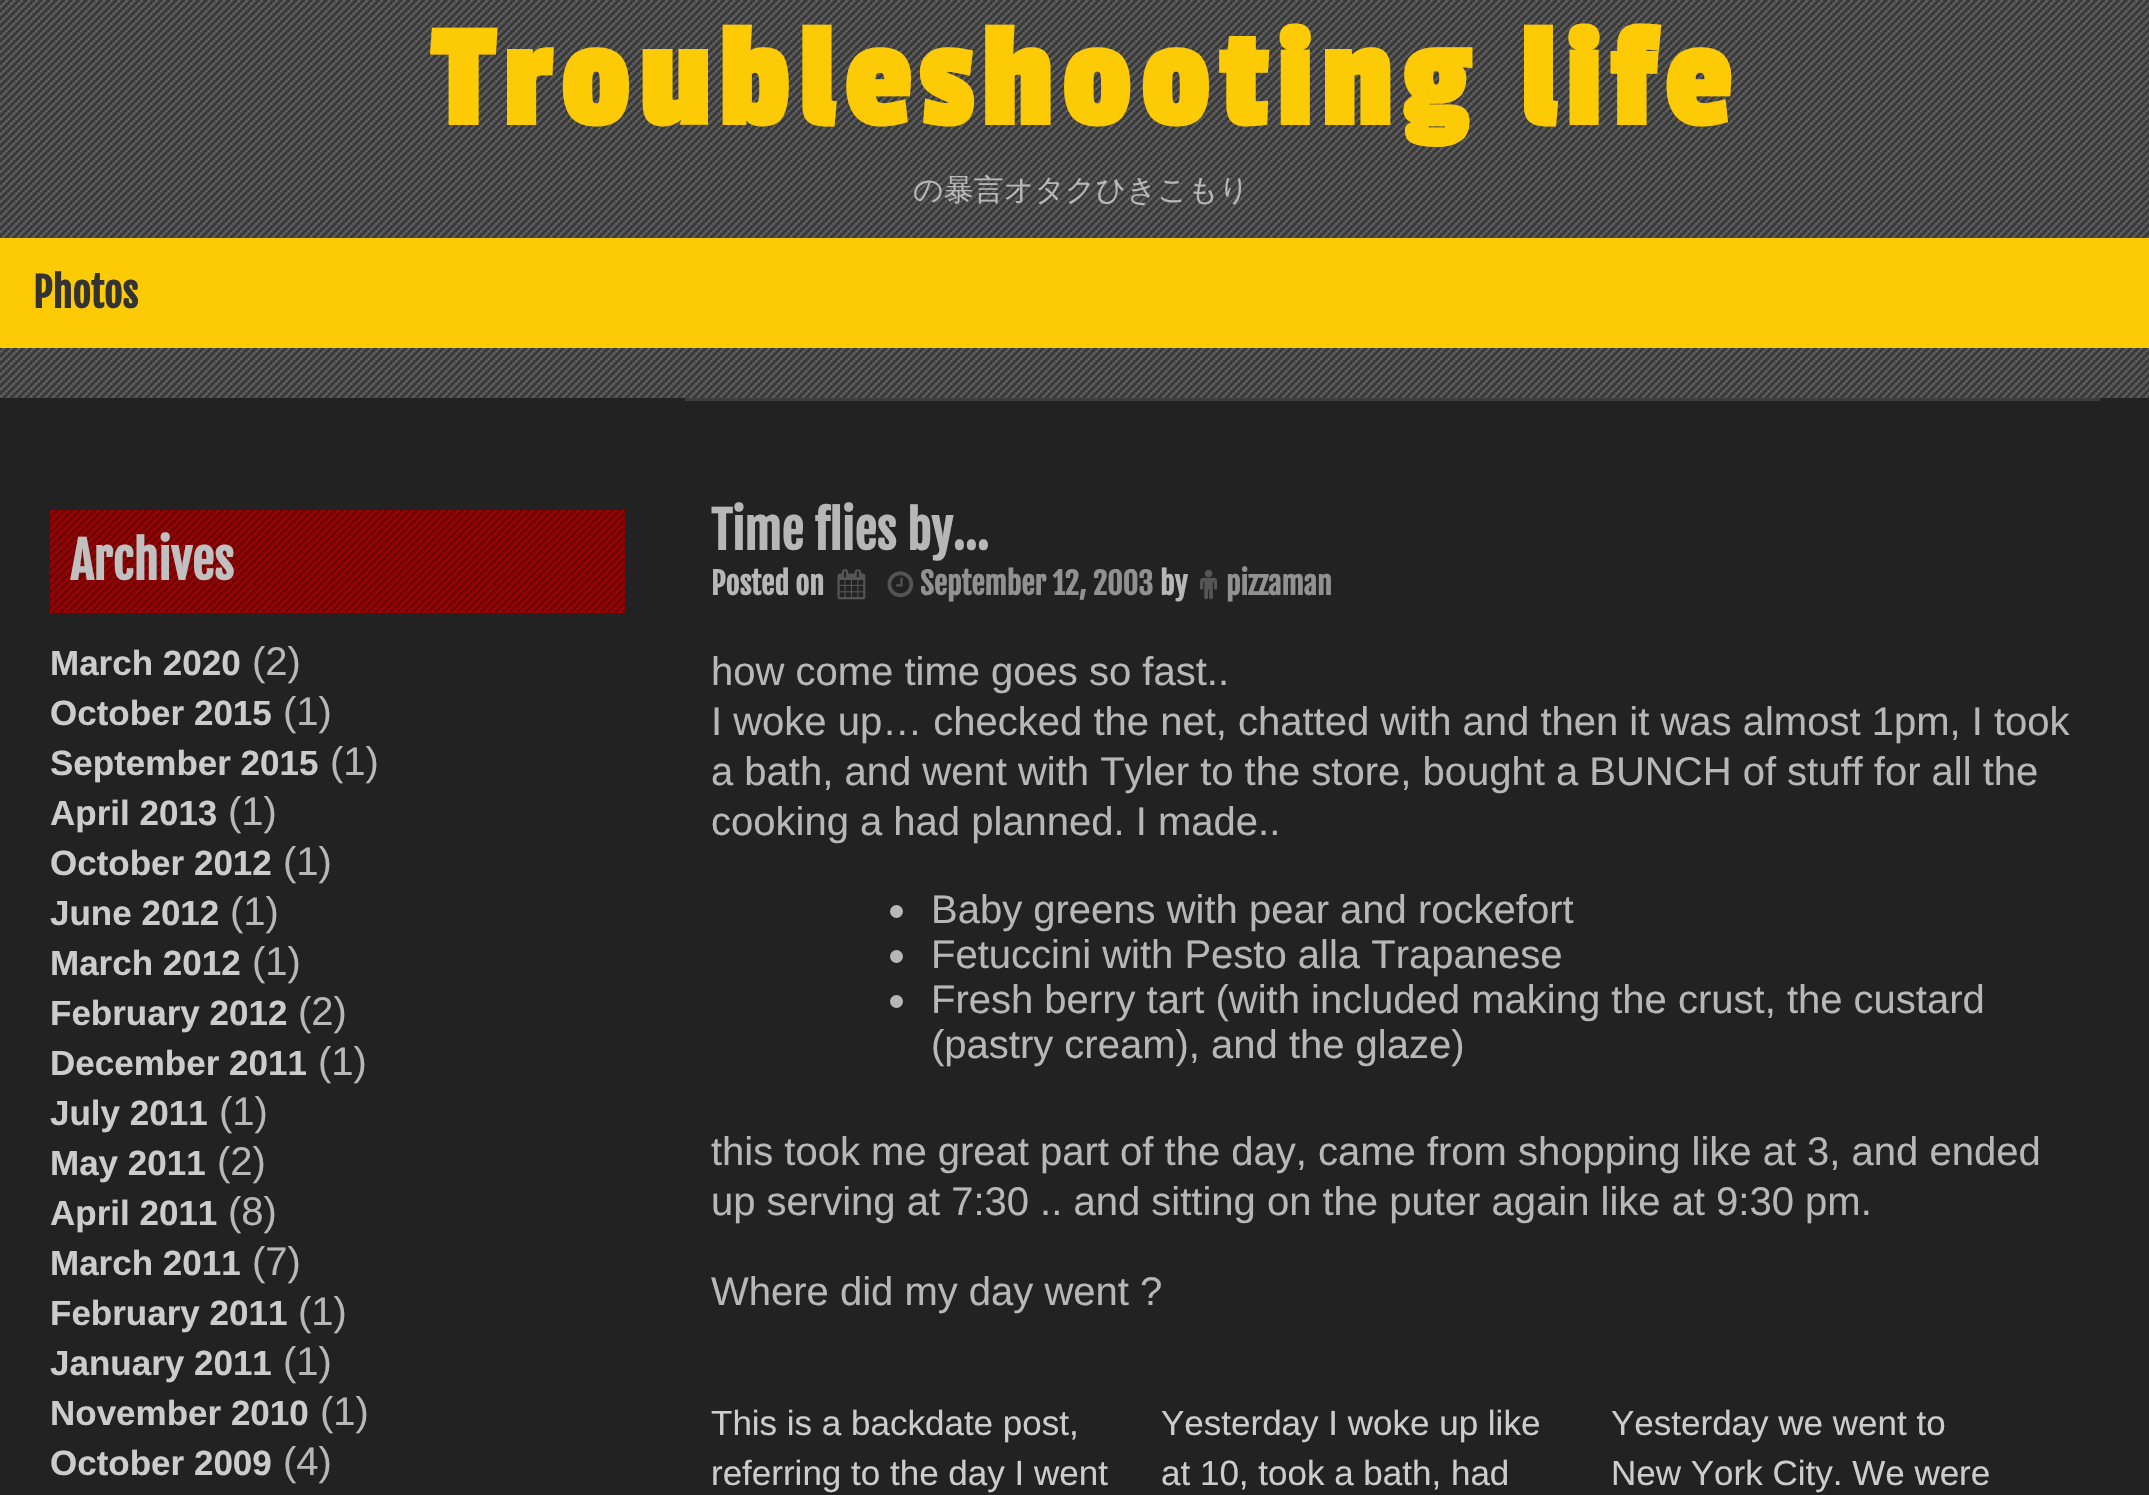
#include "include/core/SkBlurTypes.h"
#include "include/core/SkCanvas.h"
#include "include/core/SkData.h"
#include "include/core/SkFont.h"
#include "include/core/SkFontMgr.h"
#include "include/core/SkImage.h"
#include "include/core/SkMaskFilter.h"
#include "include/core/SkPaint.h"
#include "include/core/SkPathBuilder.h"
#include "include/core/SkTextBlob.h"
#include "include/effects/SkDashPathEffect.h"
#include "include/effects/SkGradientShader.h"
#include "include/utils/SkParsePath.h"

extern sk_sp<SkFontMgr> fontMgr;

void draw(SkCanvas* canvas) {
  SkPaint p;
  p.setAntiAlias(true);
  auto spacedText = [&](const char* s, float x, float y, const SkFont& font, const SkPaint& ink, float letter, float word) {
    std::vector<SkGlyphID> glyphs(font.countText(s, strlen(s), SkTextEncoding::kUTF8));
    std::vector<float> xs(glyphs.size());
    font.textToGlyphs(s, strlen(s), SkTextEncoding::kUTF8, glyphs);
    font.getXPos(glyphs, xs, x);
    float extra = 0;
    for (size_t i = 0; i < glyphs.size(); i++) {
      xs[i] += extra;
      extra += letter + word * (glyphs[i] == font.unicharToGlyph(' '));
    }
    canvas->drawTextBlob(SkTextBlob::MakeFromPosHGlyphs(glyphs, xs, y, font), 0, 0, ink);
  };
  canvas->clear(SkColorSetRGB(51, 51, 51));
  canvas->drawImageRect(SkImages::DeferredFromEncodedData(SkData::MakeFromFileName("images/1.png")), SkRect::MakeLTRB(0, 0, 2149, 398), SkSamplingOptions());
  p.setColor(SkColorSetRGB(252, 203, 5));
  canvas->drawRect(SkRect::MakeLTRB(0, 238, 2149, 348), p);
  p.setColor(SkColorSetRGB(34, 34, 34));
  canvas->drawRect(SkRect::MakeLTRB(0, 398, 2149, 1495), p);
  p.setColor(SkColorSetRGB(165, 0, 0));
  canvas->drawRect(SkRect::MakeLTRB(50, 510, 625, 613), p);
  canvas->drawImageRect(SkImages::DeferredFromEncodedData(SkData::MakeFromFileName("images/2.png")), SkRect::MakeLTRB(50, 510, 625, 613), SkSamplingOptions());
  p.setColor(SkColorSetRGB(61, 61, 61));
  canvas->drawRect(SkRect::MakeLTRB(685, 398, 2100, 401), p);
  canvas->drawImageRect(SkImages::DeferredFromEncodedData(SkData::MakeFromFileName("images/3.png")), SkRect::MakeLTRB(837, 569, 866, 600), SkSamplingOptions());
  canvas->drawImageRect(SkImages::DeferredFromEncodedData(SkData::MakeFromFileName("images/4.png")), SkRect::MakeLTRB(887, 571, 914, 598), SkSamplingOptions());
  canvas->drawImageRect(SkImages::DeferredFromEncodedData(SkData::MakeFromFileName("images/5.png")), SkRect::MakeLTRB(1200, 569, 1218, 600), SkSamplingOptions());
  p.setColor(SkColorSetRGB(183, 183, 183));
  canvas->drawCircle(896.5f, 911.5f, 6.5f, p);
  canvas->drawCircle(896.5f, 956.5f, 6.5f, p);
  canvas->drawCircle(896.5f, 1001.5f, 6.5f, p);
  SkFont font1(fontMgr->matchFamilyStyle("Passion One", SkFontStyle::Bold()), 150);
  font1.setSubpixel(true);
  p.setColor(SkColorSetRGB(252, 203, 5));
  spacedText("Troubleshooting life", 431, 125, font1, p, 10, 0);
  SkFont font2(fontMgr->matchFamilyStyle("WenQuanYi Zen Hei", SkFontStyle(500, SkFontStyle::kNormal_Width, SkFontStyle::kUpright_Slant)), 30);
  font2.setSubpixel(true);
  p.setColor(SkColorSetRGB(183, 183, 183));
  canvas->drawString("の暴言オタクひきこもり", 913, 200, font2, p);
  SkFont font3(fontMgr->matchFamilyStyle("Fjalla One", SkFontStyle::Bold()), 40);
  font3.setSubpixel(true);
  p.setColor(SkColorSetRGB(51, 51, 51));
  canvas->drawString("Photos", 33, 308, font3, p);
  SkFont font4(fontMgr->matchFamilyStyle("Fjalla One", SkFontStyle::Bold()), 50);
  font4.setSubpixel(true);
  p.setColor(SkColorSetRGB(192, 192, 192));
  canvas->drawString("Archives", 70, 580, font4, p);
  SkFont font5(fontMgr->matchFamilyStyle("Liberation Sans", SkFontStyle::Bold()), 35);
  font5.setSubpixel(true);
  p.setColor(SkColorSetRGB(204, 204, 204));
  canvas->drawString("March 2020", 50, 675, font5, p);
  SkFont font6(fontMgr->matchFamilyStyle("Liberation Sans", SkFontStyle::Normal()), 40);
  font6.setSubpixel(true);
  p.setColor(SkColorSetRGB(183, 183, 183));
  canvas->drawString("(2)", 252, 675, font6, p);
  p.setColor(SkColorSetRGB(204, 204, 204));
  canvas->drawString("October 2015", 50, 725, font5, p);
  p.setColor(SkColorSetRGB(183, 183, 183));
  canvas->drawString("(1)", 283, 725, font6, p);
  p.setColor(SkColorSetRGB(204, 204, 204));
  canvas->drawString("September 2015", 50, 775, font5, p);
  p.setColor(SkColorSetRGB(183, 183, 183));
  canvas->drawString("(1)", 330, 775, font6, p);
  p.setColor(SkColorSetRGB(204, 204, 204));
  canvas->drawString("April 2013", 50, 825, font5, p);
  p.setColor(SkColorSetRGB(183, 183, 183));
  canvas->drawString("(1)", 228, 825, font6, p);
  p.setColor(SkColorSetRGB(204, 204, 204));
  canvas->drawString("October 2012", 50, 875, font5, p);
  p.setColor(SkColorSetRGB(183, 183, 183));
  canvas->drawString("(1)", 283, 875, font6, p);
  p.setColor(SkColorSetRGB(204, 204, 204));
  canvas->drawString("June 2012", 50, 925, font5, p);
  p.setColor(SkColorSetRGB(183, 183, 183));
  canvas->drawString("(1)", 230, 925, font6, p);
  p.setColor(SkColorSetRGB(204, 204, 204));
  canvas->drawString("March 2012", 50, 975, font5, p);
  p.setColor(SkColorSetRGB(183, 183, 183));
  canvas->drawString("(1)", 252, 975, font6, p);
  p.setColor(SkColorSetRGB(204, 204, 204));
  canvas->drawString("February 2012", 50, 1025, font5, p);
  p.setColor(SkColorSetRGB(183, 183, 183));
  canvas->drawString("(2)", 298, 1025, font6, p);
  p.setColor(SkColorSetRGB(204, 204, 204));
  canvas->drawString("December 2011", 50, 1075, font5, p);
  p.setColor(SkColorSetRGB(183, 183, 183));
  canvas->drawString("(1)", 318, 1075, font6, p);
  p.setColor(SkColorSetRGB(204, 204, 204));
  canvas->drawString("July 2011", 50, 1125, font5, p);
  p.setColor(SkColorSetRGB(183, 183, 183));
  canvas->drawString("(1)", 219, 1125, font6, p);
  p.setColor(SkColorSetRGB(204, 204, 204));
  canvas->drawString("May 2011", 50, 1175, font5, p);
  p.setColor(SkColorSetRGB(183, 183, 183));
  canvas->drawString("(2)", 217, 1175, font6, p);
  p.setColor(SkColorSetRGB(204, 204, 204));
  canvas->drawString("April 2011", 50, 1225, font5, p);
  p.setColor(SkColorSetRGB(183, 183, 183));
  canvas->drawString("(8)", 228, 1225, font6, p);
  p.setColor(SkColorSetRGB(204, 204, 204));
  canvas->drawString("March 2011", 50, 1275, font5, p);
  p.setColor(SkColorSetRGB(183, 183, 183));
  canvas->drawString("(7)", 252, 1275, font6, p);
  p.setColor(SkColorSetRGB(204, 204, 204));
  canvas->drawString("February 2011", 50, 1325, font5, p);
  p.setColor(SkColorSetRGB(183, 183, 183));
  canvas->drawString("(1)", 298, 1325, font6, p);
  p.setColor(SkColorSetRGB(204, 204, 204));
  canvas->drawString("January 2011", 50, 1375, font5, p);
  p.setColor(SkColorSetRGB(183, 183, 183));
  canvas->drawString("(1)", 283, 1375, font6, p);
  p.setColor(SkColorSetRGB(204, 204, 204));
  canvas->drawString("November 2010", 50, 1425, font5, p);
  p.setColor(SkColorSetRGB(183, 183, 183));
  canvas->drawString("(1)", 320, 1425, font6, p);
  p.setColor(SkColorSetRGB(204, 204, 204));
  canvas->drawString("October 2009", 50, 1475, font5, p);
  p.setColor(SkColorSetRGB(183, 183, 183));
  canvas->drawString("(4)", 283, 1475, font6, p);
  canvas->drawString("Time flies by…", 711, 550, font4, p);
  SkFont font7(fontMgr->matchFamilyStyle("Fjalla One", SkFontStyle::Bold()), 30);
  font7.setSubpixel(true);
  canvas->drawString("Posted on", 711, 595, font7, p);
  p.setColor(SkColorSetRGB(145, 145, 145));
  canvas->drawString("September 12, 2003", 920, 595, font7, p);
  p.setColor(SkColorSetRGB(183, 183, 183));
  canvas->drawString("by", 1160, 595, font7, p);
  p.setColor(SkColorSetRGB(145, 145, 145));
  canvas->drawString("pizzaman", 1226, 595, font7, p);
  p.setColor(SkColorSetRGB(183, 183, 183));
  canvas->drawString("how come time goes so fast..", 711, 685, font6, p);
  canvas->drawString("I woke up… checked the net, chatted with and then it was almost 1pm, I took", 711, 735, font6, p);
  canvas->drawString("a bath, and went with Tyler to the store, bought a BUNCH of stuff for all the", 711, 785, font6, p);
  canvas->drawString("cooking a had planned. I made..", 711, 835, font6, p);
  canvas->drawString("Baby greens with pear and rockefort", 931, 923, font6, p);
  canvas->drawString("Fetuccini with Pesto alla Trapanese", 931, 968, font6, p);
  canvas->drawString("Fresh berry tart (with included making the crust, the custard", 931, 1013, font6, p);
  canvas->drawString("(pastry cream), and the glaze)", 931, 1058, font6, p);
  canvas->drawString("this took me great part of the day, came from shopping like at 3, and ended", 711, 1165, font6, p);
  canvas->drawString("up serving at 7:30 .. and sitting on the puter again like at 9:30 pm.", 711, 1215, font6, p);
  canvas->drawString("Where did my day went ?", 711, 1305, font6, p);
  SkFont font8(fontMgr->matchFamilyStyle("Liberation Sans", SkFontStyle::Normal()), 35);
  font8.setSubpixel(true);
  p.setColor(SkColorSetRGB(204, 204, 204));
  canvas->drawString("This is a backdate post,", 711, 1435, font8, p);
  canvas->drawString("referring to the day I went", 711, 1485, font8, p);
  canvas->drawString("Yesterday I woke up like", 1161, 1435, font8, p);
  canvas->drawString("at 10, took a bath, had", 1161, 1485, font8, p);
  canvas->drawString("Yesterday we went to", 1611, 1435, font8, p);
  canvas->drawString("New York City. We were", 1611, 1485, font8, p);
}
